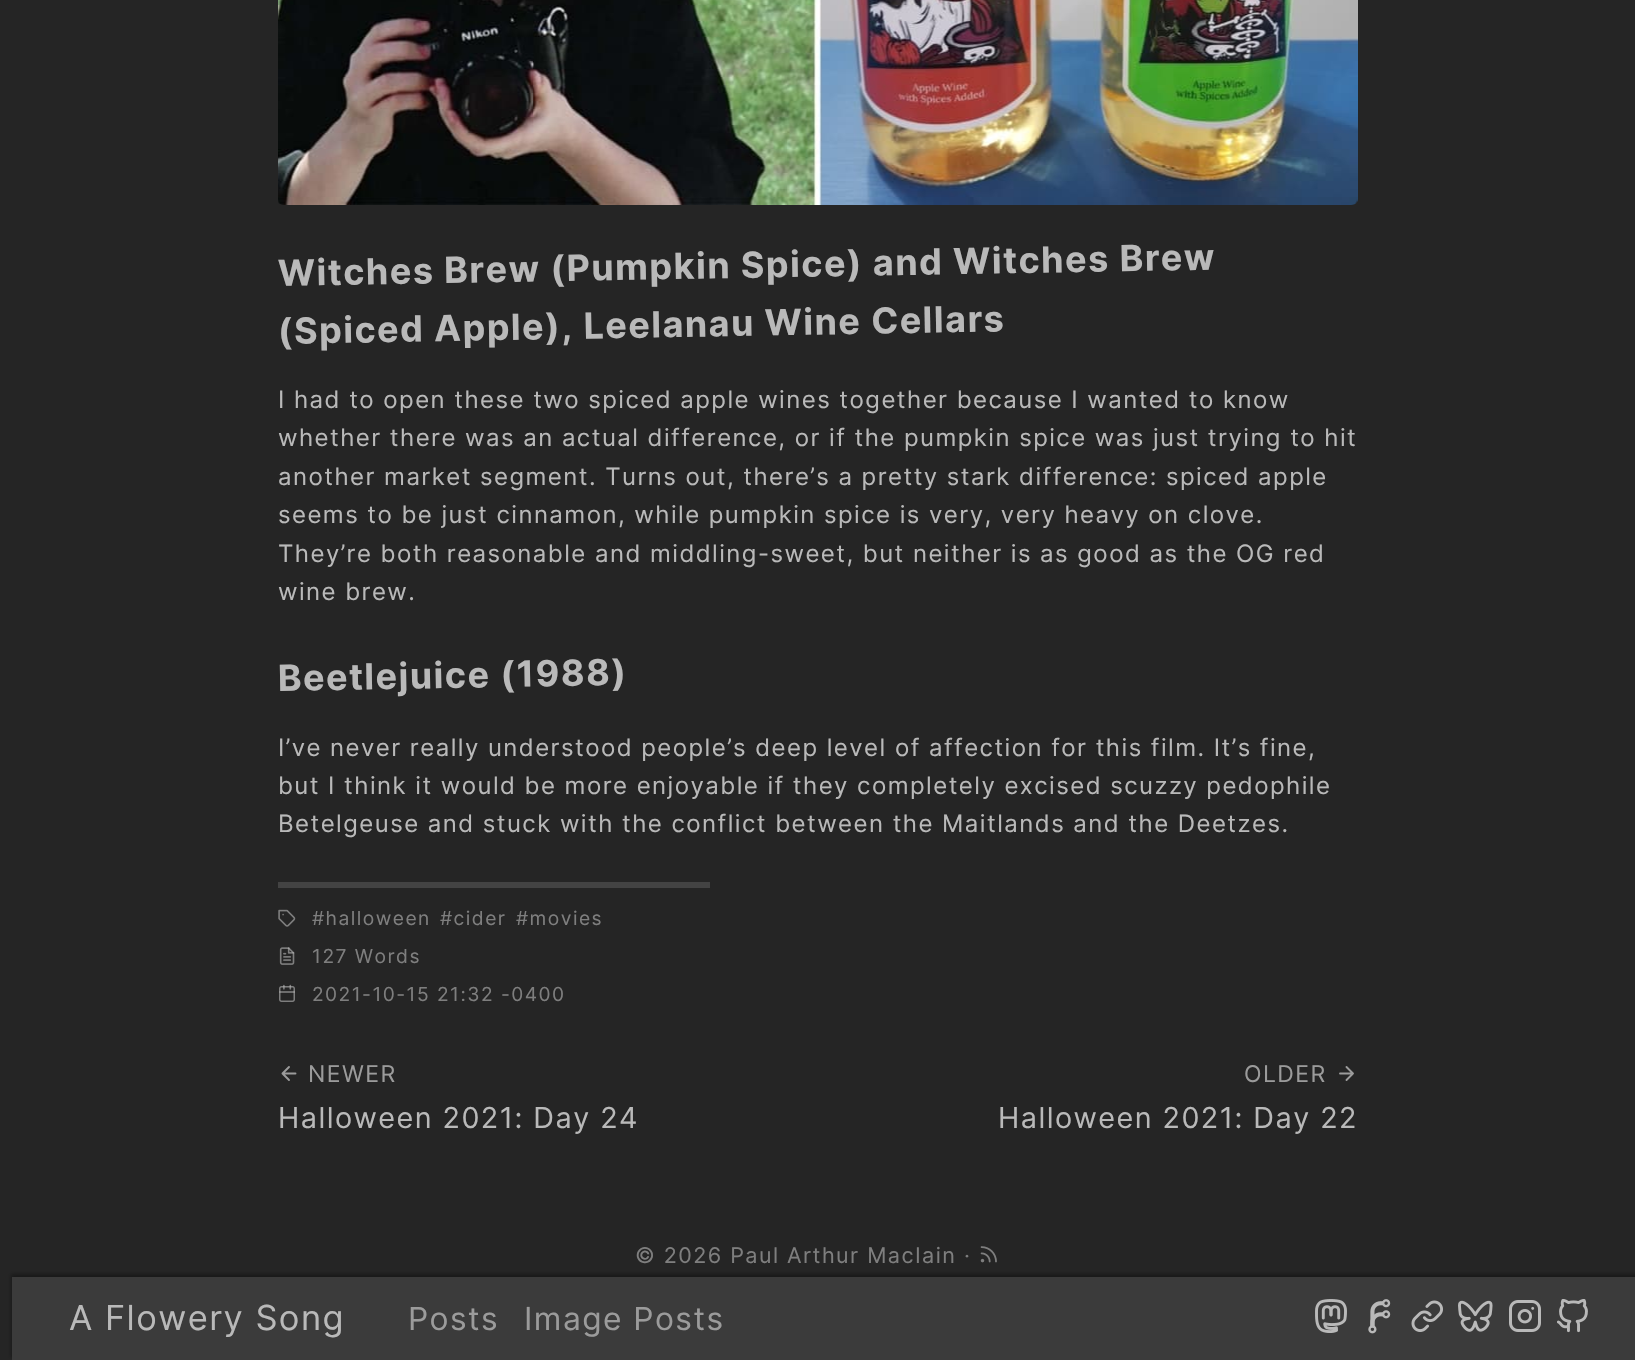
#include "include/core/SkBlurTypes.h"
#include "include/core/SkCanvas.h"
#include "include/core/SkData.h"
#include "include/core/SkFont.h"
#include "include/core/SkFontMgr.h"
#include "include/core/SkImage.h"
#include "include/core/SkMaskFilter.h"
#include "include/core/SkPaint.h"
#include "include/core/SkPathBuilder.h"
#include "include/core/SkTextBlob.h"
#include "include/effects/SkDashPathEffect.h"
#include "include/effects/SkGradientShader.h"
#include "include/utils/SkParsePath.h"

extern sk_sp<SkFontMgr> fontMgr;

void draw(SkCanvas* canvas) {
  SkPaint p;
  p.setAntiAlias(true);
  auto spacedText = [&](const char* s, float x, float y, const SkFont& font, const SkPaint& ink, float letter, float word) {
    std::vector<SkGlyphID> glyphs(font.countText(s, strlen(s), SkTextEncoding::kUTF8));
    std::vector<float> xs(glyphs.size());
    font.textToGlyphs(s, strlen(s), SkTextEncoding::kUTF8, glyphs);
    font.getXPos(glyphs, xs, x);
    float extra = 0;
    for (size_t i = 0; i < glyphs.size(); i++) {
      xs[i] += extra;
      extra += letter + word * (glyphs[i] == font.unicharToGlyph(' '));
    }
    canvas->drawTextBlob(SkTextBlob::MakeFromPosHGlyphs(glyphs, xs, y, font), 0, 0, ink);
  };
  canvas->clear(SkColorSetRGB(37, 37, 37));
  canvas->drawImageRect(SkImages::DeferredFromEncodedData(SkData::MakeFromFileName("images/1.png")), SkRect::MakeLTRB(278, 0, 1358, 205), SkSamplingOptions());
  p.setColor(SkColorSetRGB(67, 67, 67));
  canvas->drawRect(SkRect::MakeLTRB(278, 882, 710, 888), p);
  canvas->drawImageRect(SkImages::DeferredFromEncodedData(SkData::MakeFromFileName("images/2.png")), SkRect::MakeLTRB(278, 909, 296, 927), SkSamplingOptions());
  canvas->drawImageRect(SkImages::DeferredFromEncodedData(SkData::MakeFromFileName("images/3.png")), SkRect::MakeLTRB(279, 947, 295, 965), SkSamplingOptions());
  canvas->drawImageRect(SkImages::DeferredFromEncodedData(SkData::MakeFromFileName("images/4.png")), SkRect::MakeLTRB(279, 984, 295, 1002), SkSamplingOptions());
  p.setStyle(SkPaint::kStroke_Style);
  p.setStrokeWidth(1.9f);
  p.setStrokeCap(SkPaint::kRound_Cap);
  p.setStrokeJoin(SkPaint::kRound_Join);
  p.setColor(SkColorSetRGB(155, 155, 155));
  canvas->drawPath(SkPathBuilder().moveTo(295.5f, 1073.5f).lineTo(282.5f, 1073.5f).moveTo(289, 1080).lineTo(282.5f, 1073.5f).lineTo(289, 1067).detach(), p);
  canvas->drawPath(SkPathBuilder().moveTo(1340, 1073.5f).lineTo(1353, 1073.5f).moveTo(1346.5f, 1067).lineTo(1353, 1073.5f).lineTo(1346.5f, 1080).detach(), p);
  canvas->drawImageRect(SkImages::DeferredFromEncodedData(SkData::MakeFromFileName("images/5.png")), SkRect::MakeLTRB(980, 1246, 997, 1263), SkSamplingOptions());
  p.setStyle(SkPaint::kFill_Style);
  p.setColor(SkColorSetRGB(24, 24, 24));
  p.setMaskFilter(SkMaskFilter::MakeBlur(kNormal_SkBlurStyle, 2));
  canvas->drawRect(SkRect::MakeLTRB(11, 1274, 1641, 1358), p);
  p.setMaskFilter(nullptr);
  p.setColor(SkColorSetRGB(59, 59, 59));
  canvas->drawRect(SkRect::MakeLTRB(12, 1277, 1635, 1360), p);
  canvas->drawImageRect(SkImages::DeferredFromEncodedData(SkData::MakeFromFileName("images/6.png")), SkRect::MakeLTRB(1315, 1299, 1347, 1333), SkSamplingOptions());
  canvas->drawImageRect(SkImages::DeferredFromEncodedData(SkData::MakeFromFileName("images/7.png")), SkRect::MakeLTRB(1368, 1299, 1391, 1334), SkSamplingOptions());
  canvas->drawImageRect(SkImages::DeferredFromEncodedData(SkData::MakeFromFileName("images/8.png")), SkRect::MakeLTRB(1411, 1300, 1443, 1332), SkSamplingOptions());
  canvas->drawImageRect(SkImages::DeferredFromEncodedData(SkData::MakeFromFileName("images/9.png")), SkRect::MakeLTRB(1458, 1300, 1493, 1332), SkSamplingOptions());
  canvas->drawImageRect(SkImages::DeferredFromEncodedData(SkData::MakeFromFileName("images/10.png")), SkRect::MakeLTRB(1509, 1300, 1541, 1332), SkSamplingOptions());
  canvas->drawImageRect(SkImages::DeferredFromEncodedData(SkData::MakeFromFileName("images/11.png")), SkRect::MakeLTRB(1557, 1299, 1588, 1333), SkSamplingOptions());
  SkFont font1(fontMgr->matchFamilyStyle("Inter", SkFontStyle::Bold()), 36);
  font1.setSubpixel(true);
  p.setColor(SkColorSetRGB(185, 185, 185));
  canvas->save();
  canvas->rotate(-1, 278, 286);
  spacedText("Witches Brew (Pumpkin Spice) and Witches Brew", 278, 286, font1, p, 1.45f, 0);
  canvas->restore();
  canvas->save();
  canvas->rotate(-1, 278, 344);
  spacedText("(Spiced Apple), Leelanau Wine Cellars", 278, 344, font1, p, 1.45f, 0);
  canvas->restore();
  SkFont font2(fontMgr->matchFamilyStyle("Inter", SkFontStyle::Normal()), 24);
  font2.setSubpixel(true);
  spacedText("I had to open these two spiced apple wines together because I wanted to know", 278, 408, font2, p, 1.45f, 0);
  spacedText("whether there was an actual difference, or if the pumpkin spice was just trying to hit", 278, 446, font2, p, 1.45f, 0);
  spacedText("another market segment. Turns out, there’s a pretty stark difference: spiced apple", 278, 485, font2, p, 1.45f, 0);
  spacedText("seems to be just cinnamon, while pumpkin spice is very, very heavy on clove.", 278, 523, font2, p, 1.45f, 0);
  spacedText("They’re both reasonable and middling-sweet, but neither is as good as the OG red", 278, 562, font2, p, 1.45f, 0);
  spacedText("wine brew.", 278, 600, font2, p, 1.45f, 0);
  canvas->save();
  canvas->rotate(-1, 278, 691);
  spacedText("Beetlejuice (1988)", 278, 691, font1, p, 1.45f, 0);
  canvas->restore();
  spacedText("I’ve never really understood people’s deep level of affection for this film. It’s fine,", 278, 756, font2, p, 1.45f, 0);
  spacedText("but I think it would be more enjoyable if they completely excised scuzzy pedophile", 278, 794, font2, p, 1.45f, 0);
  spacedText("Betelgeuse and stuck with the conflict between the Maitlands and the Deetzes.", 278, 832, font2, p, 1.45f, 0);
  SkFont font3(fontMgr->matchFamilyStyle("Inter", SkFontStyle::Normal()), 19.25f);
  font3.setSubpixel(true);
  p.setColor(SkColorSetRGB(126, 126, 126));
  spacedText("#halloween", 312, 925, font3, p, 1.45f, 0);
  spacedText("#cider", 440, 925, font3, p, 1.45f, 0);
  spacedText("#movies", 516, 925, font3, p, 1.45f, 0);
  spacedText("127 Words", 312, 963, font3, p, 1.45f, 0);
  spacedText("2021-10-15 21:32 -0400", 312, 1001, font3, p, 1.45f, 0);
  SkFont font4(fontMgr->matchFamilyStyle("Inter", SkFontStyle::Normal()), 23);
  font4.setSubpixel(true);
  p.setColor(SkColorSetRGB(155, 155, 155));
  spacedText("NEWER", 308, 1082, font4, p, 1.45f, 0);
  SkFont font5(fontMgr->matchFamilyStyle("Inter", SkFontStyle::Normal()), 28.75f);
  font5.setSubpixel(true);
  p.setColor(SkColorSetRGB(185, 185, 185));
  spacedText("Halloween 2021: Day 24", 278, 1128, font5, p, 1.45f, 0);
  p.setColor(SkColorSetRGB(155, 155, 155));
  spacedText("OLDER", 1244, 1082, font4, p, 1.45f, 0);
  p.setColor(SkColorSetRGB(185, 185, 185));
  spacedText("Halloween 2021: Day 22", 998, 1128, font5, p, 1.45f, 0);
  SkFont font6(fontMgr->matchFamilyStyle("Inter", SkFontStyle::Normal()), 21.6f);
  font6.setSubpixel(true);
  p.setColor(SkColorSetRGB(126, 126, 126));
  spacedText("© 2026 Paul Arthur MacIain ·", 635, 1263, font6, p, 1.45f, 0);
  SkFont font7(fontMgr->matchFamilyStyle("Inter", SkFontStyle::Normal()), 34.5f);
  font7.setSubpixel(true);
  p.setColor(SkColorSetRGB(185, 185, 185));
  spacedText("A Flowery Song", 69, 1330, font7, p, 1.45f, 0);
  SkFont font8(fontMgr->matchFamilyStyle("Inter", SkFontStyle::Normal()), 31.75f);
  font8.setSubpixel(true);
  p.setColor(SkColorSetRGB(155, 155, 155));
  spacedText("Posts", 408, 1330, font8, p, 1.45f, 0);
  spacedText("Image Posts", 524, 1330, font8, p, 1.45f, 0);
}
